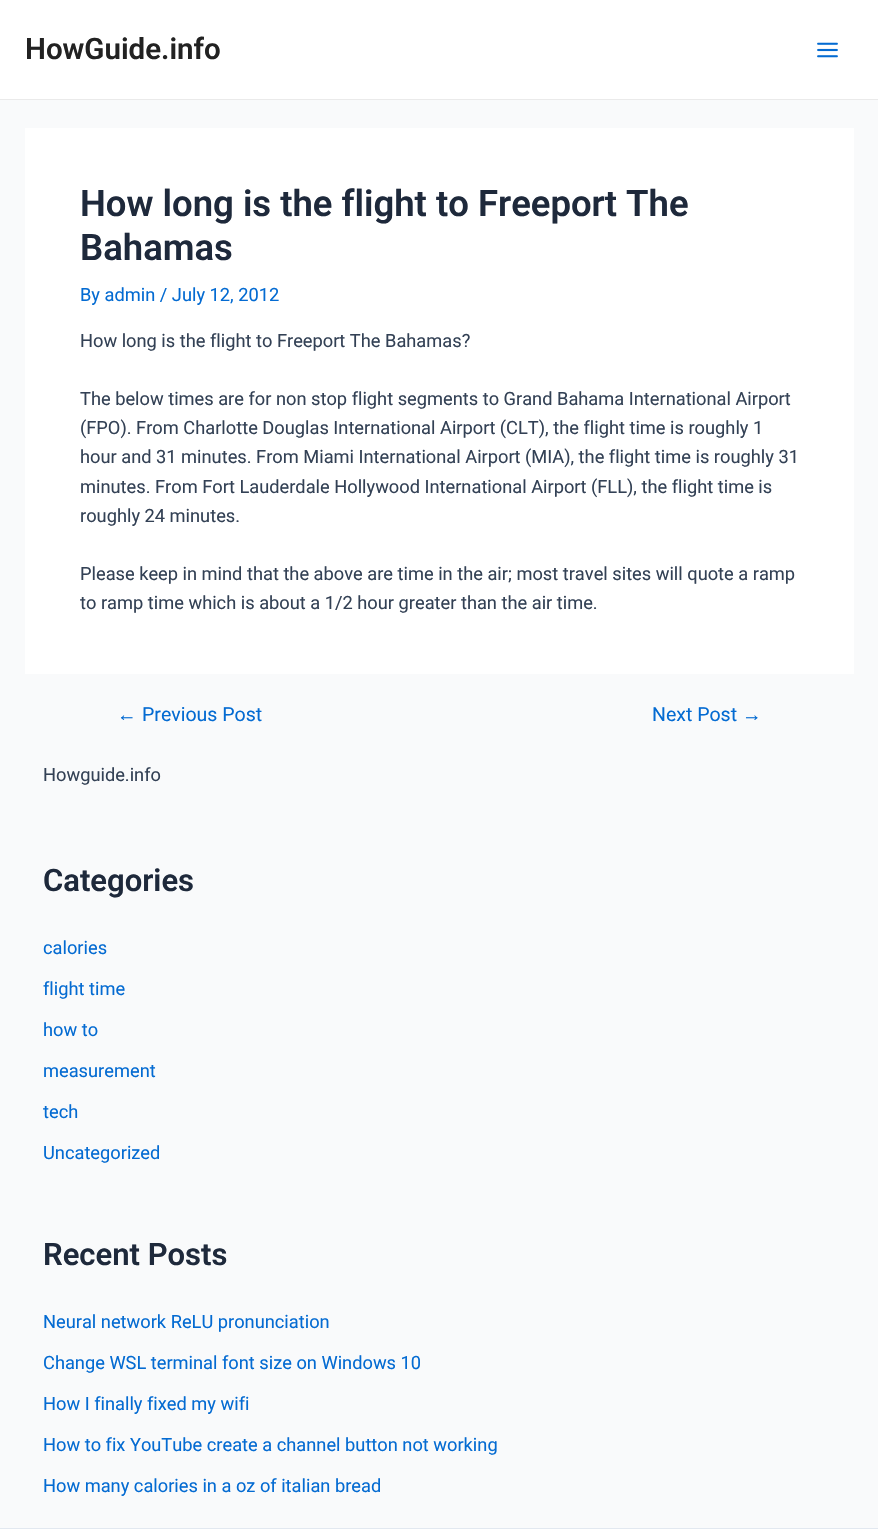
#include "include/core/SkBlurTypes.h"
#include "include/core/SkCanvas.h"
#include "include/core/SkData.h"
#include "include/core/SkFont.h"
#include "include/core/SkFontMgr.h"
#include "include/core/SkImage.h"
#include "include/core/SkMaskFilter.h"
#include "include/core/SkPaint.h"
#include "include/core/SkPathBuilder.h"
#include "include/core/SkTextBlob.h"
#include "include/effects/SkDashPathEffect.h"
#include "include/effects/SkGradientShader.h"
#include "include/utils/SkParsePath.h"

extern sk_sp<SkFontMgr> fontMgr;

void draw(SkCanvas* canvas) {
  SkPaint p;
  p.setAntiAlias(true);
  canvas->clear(SkColorSetRGB(249, 250, 251));
  p.setColor(SK_ColorWHITE);
  canvas->drawRect(SkRect::MakeLTRB(0, 0, 878, 99), p);
  p.setColor(SkColorSetRGB(234, 234, 234));
  canvas->drawRect(SkRect::MakeLTRB(0, 99, 878, 100), p);
  canvas->drawImageRect(SkImages::DeferredFromEncodedData(SkData::MakeFromFileName("images/1.png")), SkRect::MakeLTRB(817, 42, 838, 58), SkSamplingOptions());
  p.setColor(SK_ColorWHITE);
  canvas->drawRect(SkRect::MakeLTRB(25, 128, 854, 674), p);
  canvas->drawRect(SkRect::MakeLTRB(0, 1529, 878, 1533), p);
  p.setColor(SkColorSetRGB(226, 232, 240));
  canvas->drawRect(SkRect::MakeLTRB(0, 1528, 878, 1529), p);
  SkFont font1(fontMgr->matchFamilyStyle("Roboto", SkFontStyle(600, SkFontStyle::kNormal_Width, SkFontStyle::kUpright_Slant)), 29.5f);
  font1.setSubpixel(true);
  p.setColor(SkColorSetRGB(34, 34, 34));
  canvas->drawString("HowGuide.info", 25, 59, font1, p);
  SkFont font2(fontMgr->matchFamilyStyle("Roboto", SkFontStyle(600, SkFontStyle::kNormal_Width, SkFontStyle::kUpright_Slant)), 36.5f);
  font2.setSubpixel(true);
  p.setColor(SkColorSetRGB(30, 41, 59));
  canvas->drawString("How long is the flight to Freeport The", 80, 216, font2, p);
  canvas->drawString("Bahamas", 80, 260, font2, p);
  SkFont font3(fontMgr->matchFamilyStyle("Roboto", SkFontStyle::Normal()), 18.25f);
  font3.setSubpixel(true);
  p.setColor(SkColorSetRGB(4, 107, 210));
  canvas->drawString("By admin / July 12, 2012", 80, 301, font3, p);
  p.setColor(SkColorSetRGB(51, 65, 85));
  canvas->drawString("How long is the flight to Freeport The Bahamas?", 80, 347, font3, p);
  canvas->drawString("The below times are for non stop flight segments to Grand Bahama International Airport", 80, 405, font3, p);
  canvas->drawString("(FPO). From Charlotte Douglas International Airport (CLT), the flight time is roughly 1", 80, 434, font3, p);
  canvas->drawString("hour and 31 minutes. From Miami International Airport (MIA), the flight time is roughly 31", 80, 463, font3, p);
  canvas->drawString("minutes. From Fort Lauderdale Hollywood International Airport (FLL), the flight time is", 80, 493, font3, p);
  canvas->drawString("roughly 24 minutes.", 80, 522, font3, p);
  canvas->drawString("Please keep in mind that the above are time in the air; most travel sites will quote a ramp", 80, 580, font3, p);
  canvas->drawString("to ramp time which is about a 1/2 hour greater than the air time.", 80, 609, font3, p);
  SkFont font4(fontMgr->matchFamilyStyle("Liberation Sans", SkFontStyle::Normal()), 19.5f);
  font4.setSubpixel(true);
  p.setColor(SkColorSetRGB(4, 107, 210));
  canvas->drawString("←", 117, 721, font4, p);
  SkFont font5(fontMgr->matchFamilyStyle("Roboto", SkFontStyle::Normal()), 19.5f);
  font5.setSubpixel(true);
  canvas->drawString("Previous Post", 142, 721, font5, p);
  canvas->drawString("Next Post", 652, 721, font5, p);
  canvas->drawString("→", 742, 721, font4, p);
  p.setColor(SkColorSetRGB(51, 65, 85));
  canvas->drawString("Howguide.info", 43, 781, font3, p);
  SkFont font6(fontMgr->matchFamilyStyle("Roboto", SkFontStyle(600, SkFontStyle::kNormal_Width, SkFontStyle::kUpright_Slant)), 31);
  font6.setSubpixel(true);
  p.setColor(SkColorSetRGB(30, 41, 59));
  canvas->drawString("Categories", 43, 891, font6, p);
  p.setColor(SkColorSetRGB(4, 107, 210));
  canvas->drawString("calories", 43, 954, font3, p);
  canvas->drawString("flight time", 43, 995, font3, p);
  canvas->drawString("how to", 43, 1036, font3, p);
  canvas->drawString("measurement", 43, 1077, font3, p);
  canvas->drawString("tech", 43, 1118, font3, p);
  canvas->drawString("Uncategorized", 43, 1159, font3, p);
  p.setColor(SkColorSetRGB(30, 41, 59));
  canvas->drawString("Recent Posts", 43, 1265, font6, p);
  p.setColor(SkColorSetRGB(4, 107, 210));
  canvas->drawString("Neural network ReLU pronunciation", 43, 1328, font3, p);
  canvas->drawString("Change WSL terminal font size on Windows 10", 43, 1369, font3, p);
  canvas->drawString("How I finally fixed my wifi", 43, 1410, font3, p);
  canvas->drawString("How to fix YouTube create a channel button not working", 43, 1451, font3, p);
  canvas->drawString("How many calories in a oz of italian bread", 43, 1492, font3, p);
}
